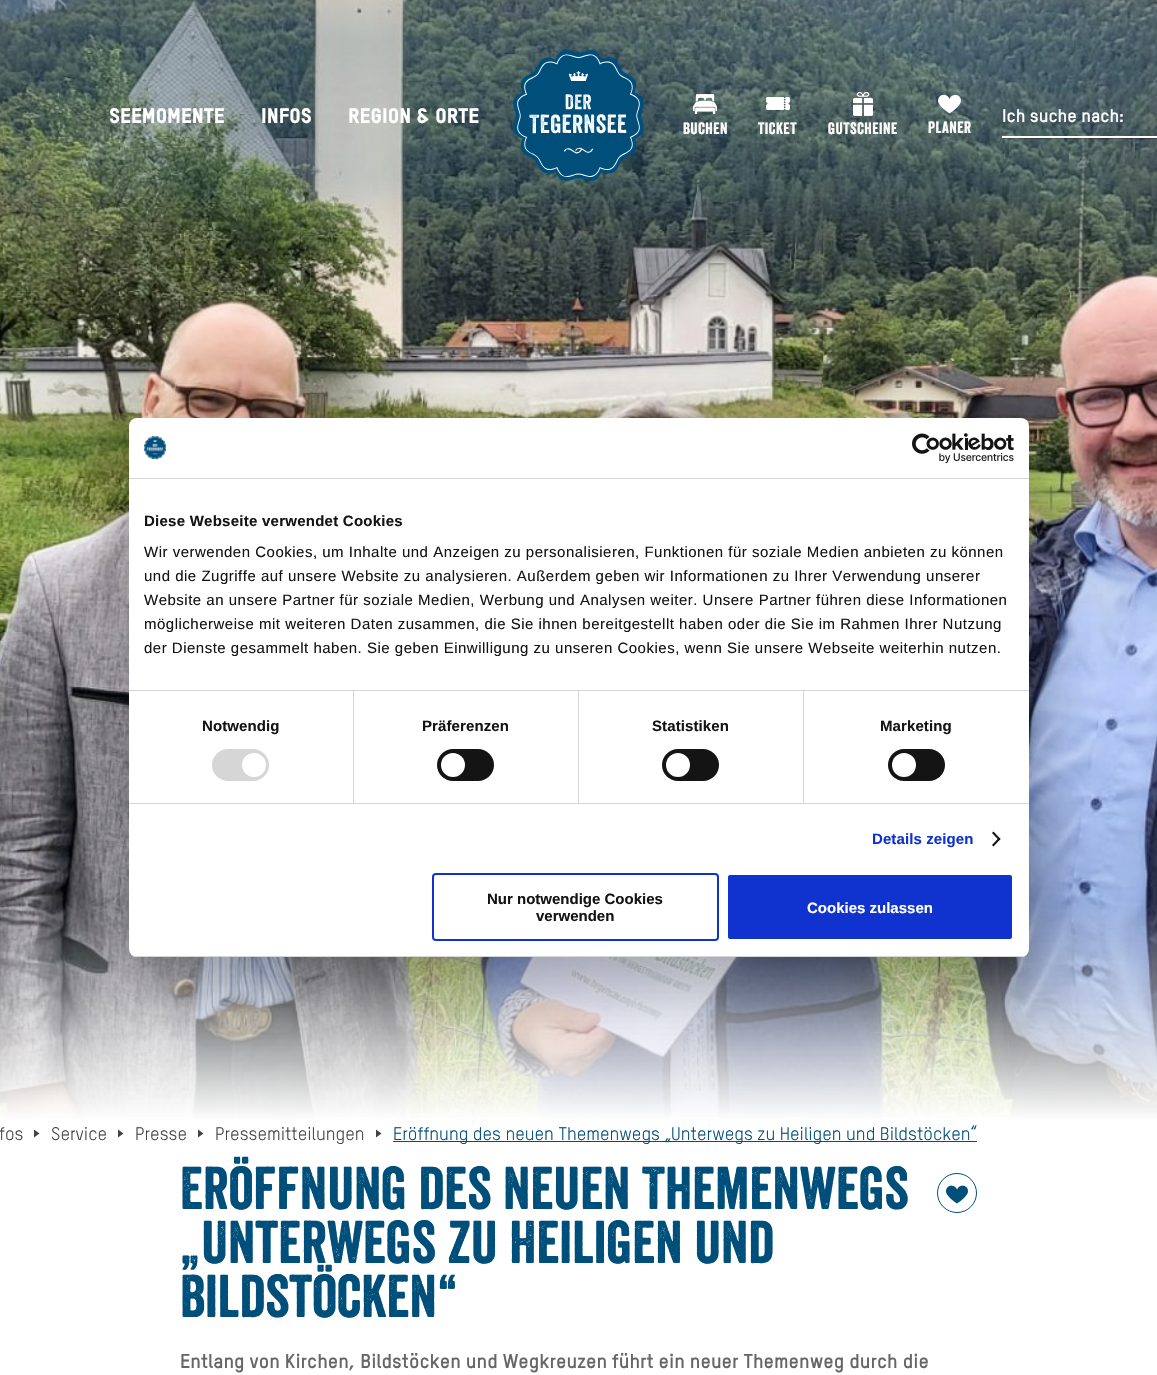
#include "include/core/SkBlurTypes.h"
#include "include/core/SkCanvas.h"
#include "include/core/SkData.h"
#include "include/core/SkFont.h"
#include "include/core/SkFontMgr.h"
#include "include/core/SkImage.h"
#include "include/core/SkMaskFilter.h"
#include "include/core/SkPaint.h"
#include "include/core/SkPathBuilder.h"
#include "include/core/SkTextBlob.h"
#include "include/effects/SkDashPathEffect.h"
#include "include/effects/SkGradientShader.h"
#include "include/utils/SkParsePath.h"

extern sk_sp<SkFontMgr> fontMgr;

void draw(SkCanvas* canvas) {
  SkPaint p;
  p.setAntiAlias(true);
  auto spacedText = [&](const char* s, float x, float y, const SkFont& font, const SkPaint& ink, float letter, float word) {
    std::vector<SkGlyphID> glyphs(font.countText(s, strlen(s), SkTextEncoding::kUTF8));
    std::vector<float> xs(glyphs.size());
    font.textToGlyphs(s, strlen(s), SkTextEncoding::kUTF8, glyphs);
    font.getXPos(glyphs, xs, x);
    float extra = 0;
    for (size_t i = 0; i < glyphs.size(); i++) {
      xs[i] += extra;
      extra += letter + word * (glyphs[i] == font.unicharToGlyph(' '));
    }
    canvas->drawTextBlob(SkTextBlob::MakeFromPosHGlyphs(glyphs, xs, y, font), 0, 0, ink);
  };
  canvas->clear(SK_ColorWHITE);
  canvas->drawImageRect(SkImages::DeferredFromEncodedData(SkData::MakeFromFileName("images/1.png")), SkRect::MakeLTRB(0, 0, 1157, 1121), SkSamplingOptions());
  canvas->save();
  canvas->clipPath(SkPathBuilder(SkPathFillType::kEvenOdd).moveTo(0, 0).lineTo(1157, 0).lineTo(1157, 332).lineTo(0, 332).close().moveTo(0, 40).lineTo(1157, 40).lineTo(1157, 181).lineTo(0, 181).close().detach(), true);
  p.setColor(SkColorSetARGB(77, 0, 79, 123));
  p.setMaskFilter(SkMaskFilter::MakeBlur(kNormal_SkBlurStyle, 50));
  canvas->drawRect(SkRect::MakeLTRB(0, 40, 1157, 181), p);
  p.setMaskFilter(nullptr);
  canvas->restore();
  canvas->drawImageRect(SkImages::DeferredFromEncodedData(SkData::MakeFromFileName("images/2.png")), SkRect::MakeLTRB(513, 50, 644, 181), SkSamplingOptions());
  p.setColor(SkColorSetARGB(64, 0, 0, 0));
  p.setMaskFilter(SkMaskFilter::MakeBlur(kNormal_SkBlurStyle, 0.5f));
  canvas->drawRect(SkRect::MakeLTRB(1003, 137, 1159, 139), p);
  p.setMaskFilter(nullptr);
  p.setColor(SK_ColorWHITE);
  canvas->drawRect(SkRect::MakeLTRB(1002, 136, 1157, 138), p);
  canvas->drawImageRect(SkImages::DeferredFromEncodedData(SkData::MakeFromFileName("images/3.png")), SkRect::MakeLTRB(693, 94, 717, 114), SkSamplingOptions());
  canvas->drawImageRect(SkImages::DeferredFromEncodedData(SkData::MakeFromFileName("images/4.png")), SkRect::MakeLTRB(766, 97, 790, 110), SkSamplingOptions());
  canvas->drawImageRect(SkImages::DeferredFromEncodedData(SkData::MakeFromFileName("images/5.png")), SkRect::MakeLTRB(853, 92, 873, 116), SkSamplingOptions());
  canvas->drawImageRect(SkImages::DeferredFromEncodedData(SkData::MakeFromFileName("images/6.png")), SkRect::MakeLTRB(938, 94, 961, 114), SkSamplingOptions());
  p.setColor(SkColorSetARGB(77, 0, 0, 0));
  p.setMaskFilter(SkMaskFilter::MakeBlur(kNormal_SkBlurStyle, 34));
  canvas->drawRoundRect(SkRect::MakeLTRB(129, 450, 1029, 989), 8, 8, p);
  p.setMaskFilter(nullptr);
  p.setColor(SK_ColorWHITE);
  canvas->drawRoundRect(SkRect::MakeLTRB(129, 418, 1029, 957), 8, 8, p);
  p.setColor(SkColorSetRGB(214, 214, 214));
  canvas->drawRect(SkRect::MakeLTRB(129, 478, 1029, 479), p);
  canvas->drawImageRect(SkImages::DeferredFromEncodedData(SkData::MakeFromFileName("images/7.png")), SkRect::MakeLTRB(144, 436, 166, 460), SkSamplingOptions());
  canvas->drawImageRect(SkImages::DeferredFromEncodedData(SkData::MakeFromFileName("images/8.png")), SkRect::MakeLTRB(912, 433, 1014, 463), SkSamplingOptions());
  canvas->drawRect(SkRect::MakeLTRB(129, 690, 1029, 691), p);
  canvas->drawRect(SkRect::MakeLTRB(129, 803, 1029, 804), p);
  canvas->drawRect(SkRect::MakeLTRB(353, 691, 354, 803), p);
  canvas->drawRoundRect(SkRect::MakeLTRB(212, 749, 269, 781), 16, 16, p);
  p.setColor(SK_ColorWHITE);
  canvas->drawCircle(254, 765, 12, p);
  p.setColor(SkColorSetRGB(214, 214, 214));
  canvas->drawRect(SkRect::MakeLTRB(578, 691, 579, 803), p);
  p.setColor(SkColorSetRGB(20, 20, 20));
  canvas->drawRoundRect(SkRect::MakeLTRB(437, 749, 494, 781), 16, 16, p);
  p.setColor(SK_ColorWHITE);
  canvas->drawCircle(453, 765, 12, p);
  p.setColor(SkColorSetRGB(214, 214, 214));
  canvas->drawRect(SkRect::MakeLTRB(803, 691, 804, 803), p);
  p.setColor(SkColorSetRGB(20, 20, 20));
  canvas->drawRoundRect(SkRect::MakeLTRB(662, 749, 719, 781), 16, 16, p);
  p.setColor(SK_ColorWHITE);
  canvas->drawCircle(678, 765, 12, p);
  p.setColor(SkColorSetRGB(20, 20, 20));
  canvas->drawRoundRect(SkRect::MakeLTRB(888, 749, 945, 781), 16, 16, p);
  p.setColor(SK_ColorWHITE);
  canvas->drawCircle(904, 765, 12, p);
  p.setColor(SkColorSetRGB(20, 20, 20));
  canvas->drawPath(SkPathBuilder().moveTo(993.5f, 831.5f).lineTo(1000.5f, 839).lineTo(999, 840.5f).lineTo(992, 833).close().detach(), p);
  canvas->drawPath(SkPathBuilder().moveTo(999, 837.5f).lineTo(1000.5f, 839).lineTo(993.5f, 846.5f).lineTo(992, 845).close().detach(), p);
  canvas->save();
  canvas->clipPath(SkPathBuilder().moveTo(137, 418).lineTo(1021, 418).cubicTo(1025.5f, 418, 1029, 421.5f, 1029, 426).lineTo(1029, 949).cubicTo(1029, 953.5f, 1025.5f, 957, 1021, 957).lineTo(137, 957).cubicTo(132.5f, 957, 129, 953.5f, 129, 949).lineTo(129, 426).cubicTo(129, 421.5f, 132.5f, 418, 137, 418).close().detach(), true);
  p.setColor(SkColorSetRGB(214, 214, 214));
  canvas->drawRect(SkRect::MakeLTRB(129, 956, 1029, 957), p);
  canvas->restore();
  p.setStyle(SkPaint::kStroke_Style);
  p.setStrokeWidth(2);
  p.setColor(SkColorSetRGB(16, 50, 207));
  canvas->drawRoundRect(SkRect::MakeLTRB(433, 874, 718, 940), 3, 3, p);
  p.setStyle(SkPaint::kFill_Style);
  canvas->drawRoundRect(SkRect::MakeLTRB(727, 874, 1013, 940), 3, 3, p);
  p.setStyle(SkPaint::kStroke_Style);
  p.setColor(SK_ColorWHITE);
  canvas->drawRoundRect(SkRect::MakeLTRB(727, 874, 1013, 940), 3, 3, p);
  p.setStyle(SkPaint::kFill_Style);
  p.setColor(SkColorSetRGB(68, 68, 68));
  canvas->drawPath(SkPathBuilder().moveTo(34, 1129.5f).lineTo(39.5f, 1133.5f).lineTo(34, 1137.5f).close().detach(), p);
  canvas->drawPath(SkPathBuilder().moveTo(118, 1129.5f).lineTo(123.5f, 1133.5f).lineTo(118, 1137.5f).close().detach(), p);
  canvas->drawPath(SkPathBuilder().moveTo(198, 1129.5f).lineTo(203.5f, 1133.5f).lineTo(198, 1137.5f).close().detach(), p);
  canvas->drawPath(SkPathBuilder().moveTo(376, 1129.5f).lineTo(381.5f, 1133.5f).lineTo(376, 1137.5f).close().detach(), p);
  p.setColor(SkColorSetRGB(0, 79, 123));
  canvas->drawRect(SkRect::MakeLTRB(393, 1141, 977, 1142), p);
  p.setStyle(SkPaint::kStroke_Style);
  p.setStrokeWidth(1);
  canvas->drawCircle(957, 1193, 19.5f, p);
  canvas->drawImageRect(SkImages::DeferredFromEncodedData(SkData::MakeFromFileName("images/9.png")), SkRect::MakeLTRB(946, 1185, 968, 1204), SkSamplingOptions());
  SkFont font1(fontMgr->matchFamilyStyle("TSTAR", SkFontStyle(900, SkFontStyle::kNormal_Width, SkFontStyle::kUpright_Slant)), 20.75f);
  font1.setSubpixel(true);
  p.setStyle(SkPaint::kFill_Style);
  p.setColor(SK_ColorWHITE);
  canvas->drawString("SEEMOMENTE", 109, 123, font1, p);
  canvas->drawString("INFOS", 261, 123, font1, p);
  canvas->drawString("REGION & ORTE", 348, 123, font1, p);
  SkFont font2(fontMgr->matchFamilyStyle("TSTAR", SkFontStyle::Bold()), 18);
  font2.setSubpixel(true);
  canvas->drawString("Ich suche nach:", 1002, 122, font2, p);
  SkFont font3(fontMgr->matchFamilyStyle("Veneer", SkFontStyle::Normal()), 16);
  font3.setSubpixel(true);
  spacedText("BUCHEN", 683, 134, font3, p, 0.5f, 0);
  spacedText("TICKET", 758, 134, font3, p, 0.5f, 0);
  spacedText("GUTSCHEINE", 828, 134, font3, p, 0.5f, 0);
  spacedText("PLANER", 928, 133, font3, p, 0.5f, 0);
  SkFont font4(fontMgr->matchFamilyStyle("Liberation Sans", SkFontStyle::Bold()), 15);
  font4.setSubpixel(true);
  p.setColor(SkColorSetRGB(20, 20, 20));
  spacedText("Diese Webseite verwendet Cookies", 144, 526, font4, p, 0.25f, 0);
  SkFont font5(fontMgr->matchFamilyStyle("Liberation Sans", SkFontStyle::Normal()), 15);
  font5.setSubpixel(true);
  spacedText("Wir verwenden Cookies, um Inhalte und Anzeigen zu personalisieren, Funktionen für soziale Medien anbieten zu können", 144, 557, font5, p, 0.5f, 0);
  spacedText("und die Zugriffe auf unsere Website zu analysieren. Außerdem geben wir Informationen zu Ihrer Verwendung unserer", 144, 581, font5, p, 0.5f, 0);
  spacedText("Website an unsere Partner für soziale Medien, Werbung und Analysen weiter. Unsere Partner führen diese Informationen", 144, 605, font5, p, 0.5f, 0);
  spacedText("möglicherweise mit weiteren Daten zusammen, die Sie ihnen bereitgestellt haben oder die Sie im Rahmen Ihrer Nutzung", 144, 629, font5, p, 0.5f, 0);
  spacedText("der Dienste gesammelt haben. Sie geben Einwilligung zu unseren Cookies, wenn Sie unsere Webseite weiterhin nutzen.", 144, 653, font5, p, 0.5f, 0);
  spacedText("Notwendig", 202, 731, font4, p, 0.1f, 0);
  spacedText("Präferenzen", 422, 731, font4, p, 0.1f, 0);
  spacedText("Statistiken", 652, 731, font4, p, 0.1f, 0);
  spacedText("Marketing", 880, 731, font4, p, 0.1f, 0);
  p.setColor(SkColorSetRGB(16, 50, 207));
  spacedText("Details zeigen", 872, 844, font4, p, 0.1f, 0);
  p.setColor(SkColorSetRGB(20, 20, 20));
  canvas->drawString("Nur notwendige Cookies", 487, 904, font4, p);
  canvas->drawString("verwenden", 536, 921, font4, p);
  p.setColor(SK_ColorWHITE);
  canvas->drawString("Cookies zulassen", 807, 913, font4, p);
  SkFont font6(fontMgr->matchFamilyStyle("TSTAR", SkFontStyle::Normal()), 18);
  font6.setSubpixel(true);
  p.setColor(SkColorSetRGB(68, 68, 68));
  canvas->drawString("fos", -1, 1140, font6, p);
  canvas->drawString("Service", 51, 1140, font6, p);
  canvas->drawString("Presse", 135, 1140, font6, p);
  canvas->drawString("Pressemitteilungen", 215, 1140, font6, p);
  p.setColor(SkColorSetRGB(0, 79, 123));
  canvas->drawString("Eröffnung des neuen Themenwegs „Unterwegs zu Heiligen und Bildstöcken“", 393, 1140, font6, p);
  SkFont font7(fontMgr->matchFamilyStyle("Veneer", SkFontStyle::Normal()), 58.5f);
  font7.setSubpixel(true);
  canvas->drawString("Eröffnung des neuen Themenwegs", 180, 1209, font7, p);
  canvas->drawString("„Unterwegs zu Heiligen und", 180, 1263, font7, p);
  canvas->drawString("Bildstöcken“", 180, 1317, font7, p);
  SkFont font8(fontMgr->matchFamilyStyle("TSTAR", SkFontStyle::Bold()), 19.8f);
  font8.setSubpixel(true);
  p.setColor(SkColorSetRGB(102, 102, 102));
  canvas->drawString("Entlang von Kirchen, Bildstöcken und Wegkreuzen führt ein neuer Themenweg durch die", 180, 1368, font8, p);
}
